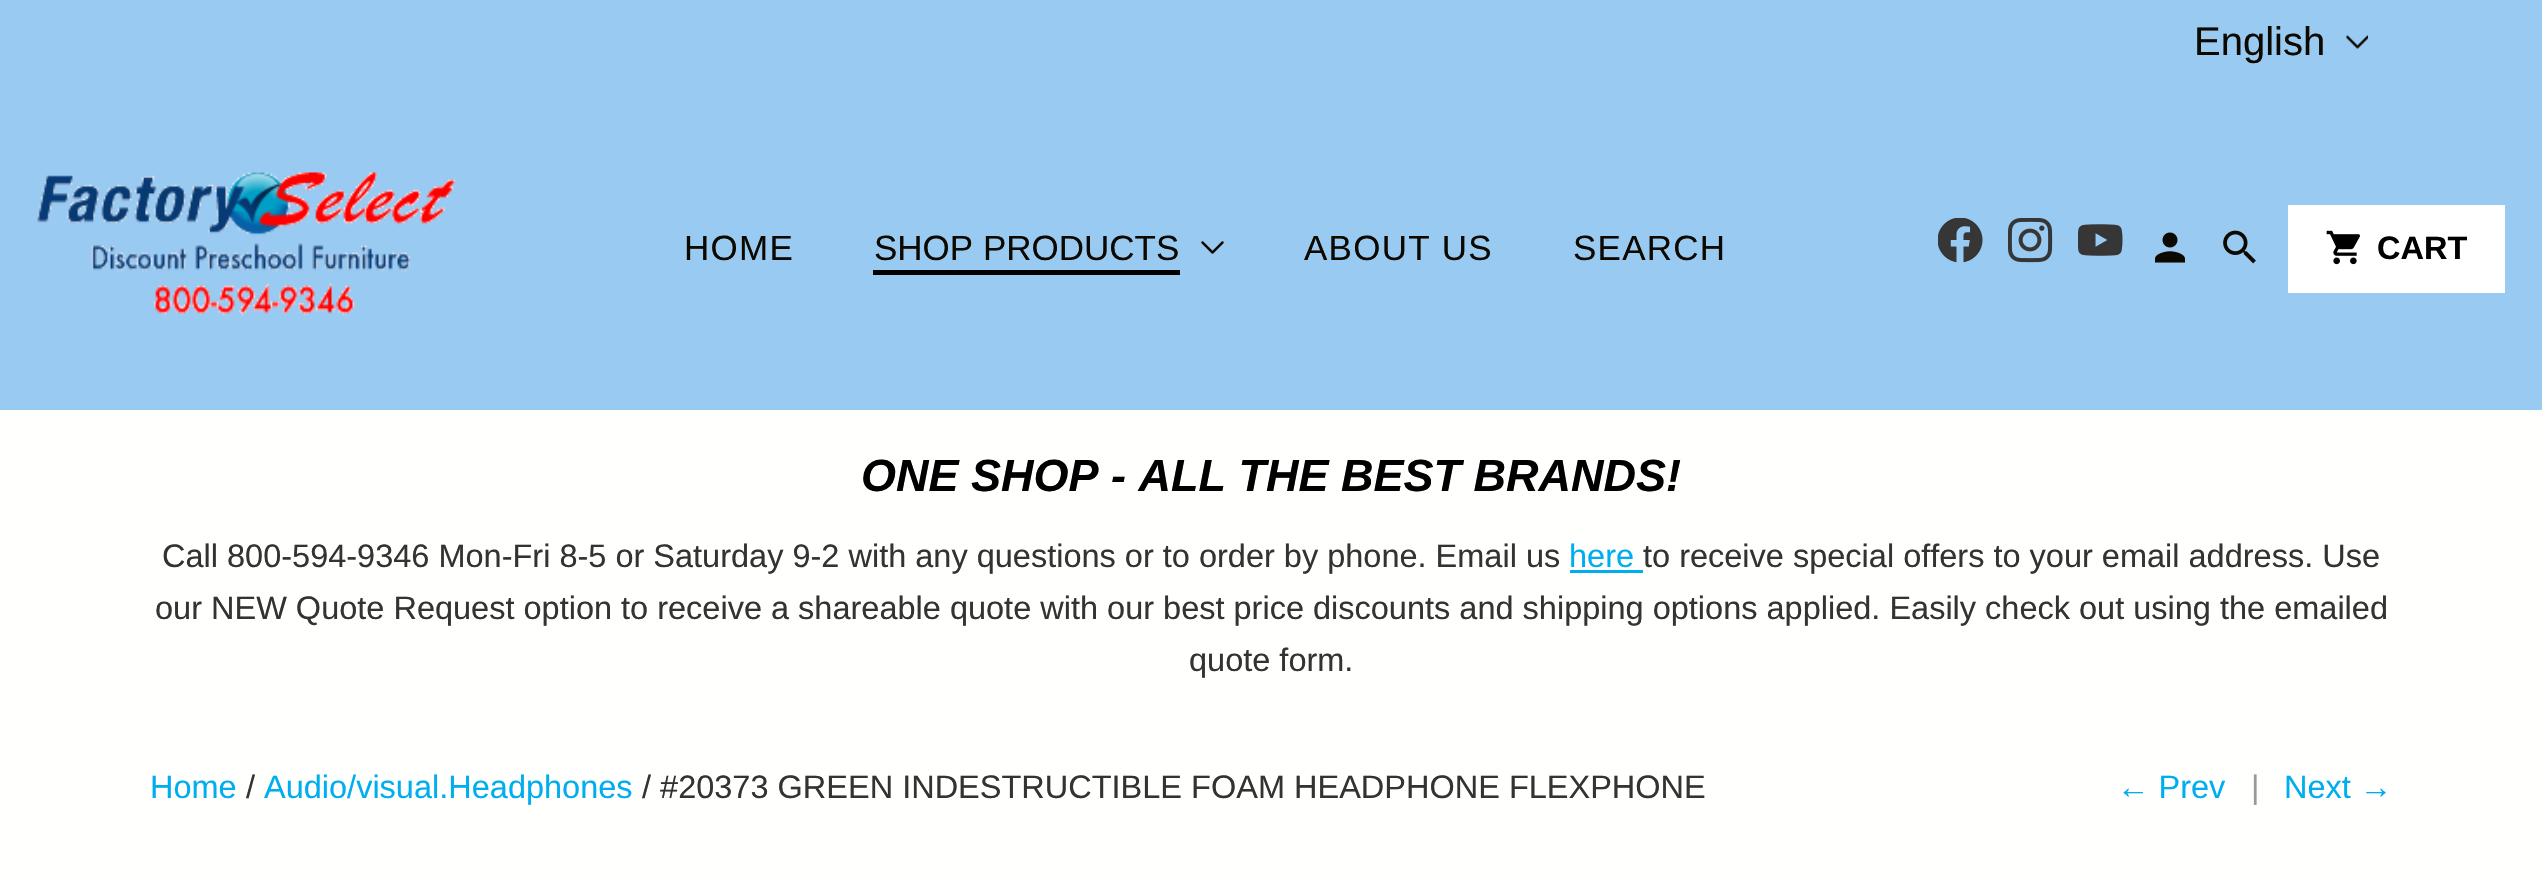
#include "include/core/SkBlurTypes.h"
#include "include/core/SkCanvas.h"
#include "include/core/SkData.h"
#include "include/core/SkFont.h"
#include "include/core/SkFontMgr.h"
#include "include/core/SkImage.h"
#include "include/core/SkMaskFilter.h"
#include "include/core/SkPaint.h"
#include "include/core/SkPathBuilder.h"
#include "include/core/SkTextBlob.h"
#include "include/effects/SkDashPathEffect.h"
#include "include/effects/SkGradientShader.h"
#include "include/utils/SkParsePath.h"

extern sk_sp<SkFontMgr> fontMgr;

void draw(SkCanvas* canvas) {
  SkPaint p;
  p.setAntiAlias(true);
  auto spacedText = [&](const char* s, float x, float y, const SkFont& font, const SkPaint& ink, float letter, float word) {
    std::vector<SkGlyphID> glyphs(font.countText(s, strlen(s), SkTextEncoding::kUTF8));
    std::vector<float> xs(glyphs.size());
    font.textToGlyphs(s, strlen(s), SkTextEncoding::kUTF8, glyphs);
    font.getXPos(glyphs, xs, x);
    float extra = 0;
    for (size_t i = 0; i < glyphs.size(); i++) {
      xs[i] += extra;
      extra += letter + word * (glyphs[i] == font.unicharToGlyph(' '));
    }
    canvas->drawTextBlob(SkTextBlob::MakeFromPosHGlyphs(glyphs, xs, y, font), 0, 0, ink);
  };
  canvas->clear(SkColorSetRGB(255, 255, 253));
  p.setColor(SkColorSetRGB(153, 202, 242));
  canvas->drawRect(SkRect::MakeLTRB(0, 0, 2542, 410), p);
  canvas->drawImageRect(SkImages::DeferredFromEncodedData(SkData::MakeFromFileName("images/1.png")), SkRect::MakeLTRB(2346, 35, 2368, 49), SkSamplingOptions());
  canvas->drawImageRect(SkImages::DeferredFromEncodedData(SkData::MakeFromFileName("images/2.png")), SkRect::MakeLTRB(37, 172, 456, 316), SkSamplingOptions());
  p.setColor(SK_ColorBLACK);
  canvas->drawRect(SkRect::MakeLTRB(873, 270, 1180, 275), p);
  canvas->drawImageRect(SkImages::DeferredFromEncodedData(SkData::MakeFromFileName("images/3.png")), SkRect::MakeLTRB(1201, 241, 1224, 254), SkSamplingOptions());
  canvas->drawImageRect(SkImages::DeferredFromEncodedData(SkData::MakeFromFileName("images/4.png")), SkRect::MakeLTRB(1938, 218, 1983, 263), SkSamplingOptions());
  canvas->drawImageRect(SkImages::DeferredFromEncodedData(SkData::MakeFromFileName("images/5.png")), SkRect::MakeLTRB(2008, 218, 2053, 263), SkSamplingOptions());
  canvas->drawImageRect(SkImages::DeferredFromEncodedData(SkData::MakeFromFileName("images/6.png")), SkRect::MakeLTRB(2078, 224, 2123, 256), SkSamplingOptions());
  canvas->drawImageRect(SkImages::DeferredFromEncodedData(SkData::MakeFromFileName("images/7.png")), SkRect::MakeLTRB(2155, 232, 2185, 263), SkSamplingOptions());
  canvas->drawImageRect(SkImages::DeferredFromEncodedData(SkData::MakeFromFileName("images/8.png")), SkRect::MakeLTRB(2223, 230, 2256, 264), SkSamplingOptions());
  p.setColor(SK_ColorWHITE);
  canvas->drawRect(SkRect::MakeLTRB(2288, 205, 2505, 293), p);
  canvas->drawImageRect(SkImages::DeferredFromEncodedData(SkData::MakeFromFileName("images/9.png")), SkRect::MakeLTRB(2326, 230, 2360, 265), SkSamplingOptions());
  p.setColor(SkColorSetRGB(0, 174, 239));
  canvas->drawRect(SkRect::MakeLTRB(1570, 570, 1643, 573), p);
  SkFont font1(fontMgr->matchFamilyStyle("Liberation Sans", SkFontStyle::Normal()), 40);
  font1.setSubpixel(true);
  p.setColor(SkColorSetRGB(13, 8, 0));
  canvas->drawString("English", 2194, 55, font1, p);
  SkFont font2(fontMgr->matchFamilyStyle("Liberation Sans", SkFontStyle::Normal()), 35);
  font2.setSubpixel(true);
  spacedText("HOME", 684, 260, font2, p, 1.25f, 0);
  canvas->drawString("SHOP PRODUCTS", 874, 260, font2, p);
  spacedText("ABOUT US", 1304, 260, font2, p, 1.25f, 0);
  spacedText("SEARCH", 1573, 260, font2, p, 1.25f, 0);
  SkFont font3(fontMgr->matchFamilyStyle("Liberation Sans", SkFontStyle::Bold()), 32.5f);
  font3.setSubpixel(true);
  p.setColor(SK_ColorBLACK);
  canvas->drawString("CART", 2377, 259, font3, p);
  SkFont font4(fontMgr->matchFamilyStyle("Liberation Sans", SkFontStyle::BoldItalic()), 45);
  font4.setSubpixel(true);
  canvas->drawString("ONE SHOP - ALL THE BEST BRANDS!", 861, 491, font4, p);
  SkFont font5(fontMgr->matchFamilyStyle("Liberation Sans", SkFontStyle::Normal()), 32.5f);
  font5.setSubpixel(true);
  p.setColor(SkColorSetRGB(51, 51, 51));
  canvas->drawString("Call 800-594-9346 Mon-Fri 8-5 or Saturday 9-2 with any questions or to order by phone. Email us", 162, 567, font5, p);
  p.setColor(SkColorSetRGB(0, 174, 239));
  canvas->drawString("here", 1569, 567, font5, p);
  p.setColor(SkColorSetRGB(51, 51, 51));
  canvas->drawString("to receive special offers to your email address. Use", 1643, 567, font5, p);
  canvas->drawString("our NEW Quote Request option to receive a shareable quote with our best price discounts and shipping options applied. Easily check out using the emailed", 155, 619, font5, p);
  canvas->drawString("quote form.", 1189, 671, font5, p);
  p.setColor(SkColorSetRGB(0, 174, 239));
  canvas->drawString("Home", 150, 798, font5, p);
  p.setColor(SkColorSetRGB(51, 51, 51));
  canvas->drawString("/", 246, 798, font5, p);
  p.setColor(SkColorSetRGB(0, 174, 239));
  canvas->drawString("Audio/visual.Headphones", 264, 798, font5, p);
  p.setColor(SkColorSetRGB(51, 51, 51));
  canvas->drawString("/ #20373 GREEN INDESTRUCTIBLE FOAM HEADPHONE FLEXPHONE", 642, 798, font5, p);
  p.setColor(SkColorSetRGB(0, 174, 239));
  canvas->drawString("← Prev", 2117, 798, font5, p);
  p.setColor(SkColorSetRGB(153, 153, 153));
  canvas->drawString("|", 2251, 798, font5, p);
  p.setColor(SkColorSetRGB(0, 174, 239));
  canvas->drawString("Next →", 2284, 798, font5, p);
}
